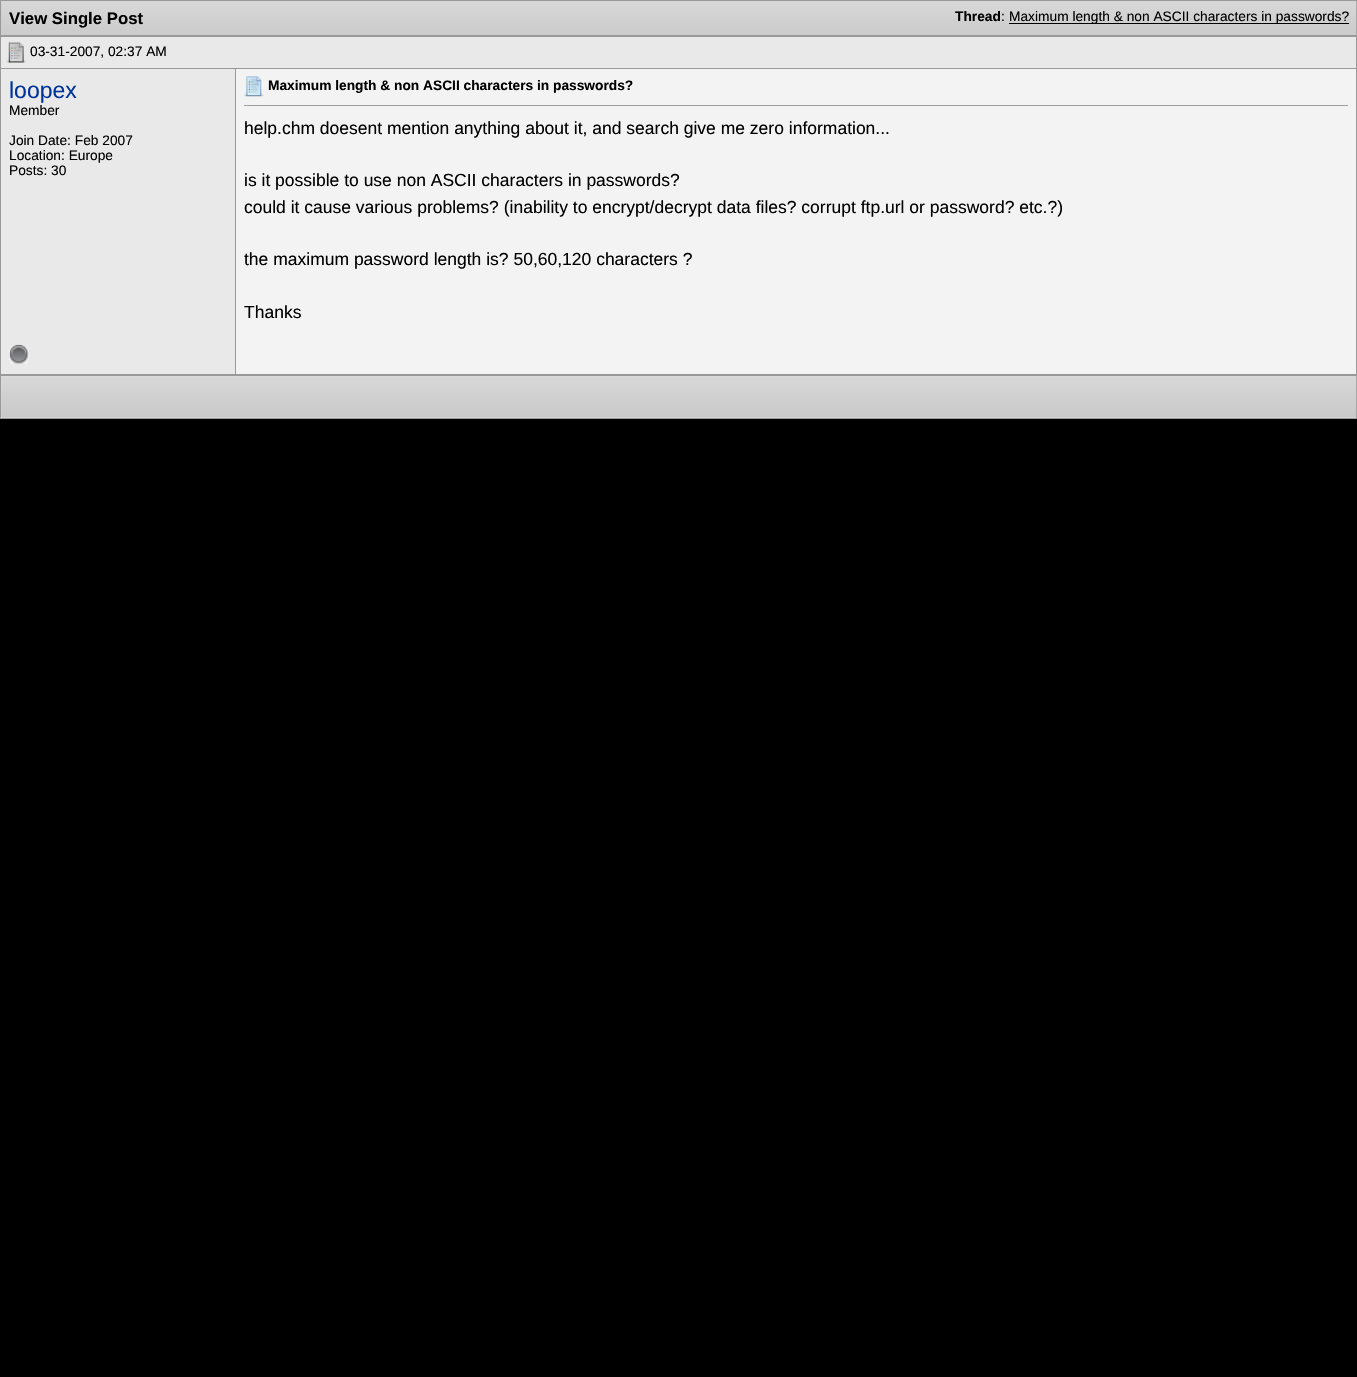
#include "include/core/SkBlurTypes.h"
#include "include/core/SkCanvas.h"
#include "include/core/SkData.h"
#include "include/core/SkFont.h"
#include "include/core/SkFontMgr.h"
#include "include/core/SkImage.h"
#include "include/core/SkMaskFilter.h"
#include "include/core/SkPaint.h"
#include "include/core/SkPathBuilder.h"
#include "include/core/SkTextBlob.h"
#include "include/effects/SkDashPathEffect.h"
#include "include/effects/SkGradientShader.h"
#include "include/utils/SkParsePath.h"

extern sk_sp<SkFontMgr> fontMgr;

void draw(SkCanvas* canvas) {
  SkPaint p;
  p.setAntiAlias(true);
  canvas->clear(SK_ColorBLACK);
  p.setColor(SkColorSetRGB(153, 153, 153));
  canvas->drawRect(SkRect::MakeLTRB(0, 0, 1357, 36), p);
  p.setColor(SkColorSetRGB(204, 204, 204));
  canvas->drawRect(SkRect::MakeLTRB(1, 1, 1356, 35), p);
  canvas->drawImageRect(SkImages::DeferredFromEncodedData(SkData::MakeFromFileName("images/1.png")), SkRect::MakeLTRB(1, 1, 1357, 35), SkSamplingOptions());
  p.setColor(SK_ColorBLACK);
  canvas->drawRect(SkRect::MakeLTRB(1009, 23, 1349, 24), p);
  p.setColor(SkColorSetRGB(233, 233, 233));
  canvas->drawRect(SkRect::MakeLTRB(1, 37, 1356, 68), p);
  p.setColor(SkColorSetRGB(153, 153, 153));
  canvas->drawRect(SkRect::MakeLTRB(0, 36, 1357, 37), p);
  canvas->drawRect(SkRect::MakeLTRB(0, 68, 236, 69), p);
  canvas->drawRect(SkRect::MakeLTRB(0, 36, 1, 333), p);
  canvas->drawImageRect(SkImages::DeferredFromEncodedData(SkData::MakeFromFileName("images/2.png")), SkRect::MakeLTRB(6, 42, 26, 63), SkSamplingOptions());
  canvas->drawRect(SkRect::MakeLTRB(1356, 36, 1357, 375), p);
  canvas->drawRect(SkRect::MakeLTRB(236, 68, 1357, 69), p);
  p.setColor(SkColorSetRGB(233, 233, 233));
  canvas->drawRect(SkRect::MakeLTRB(1, 69, 235, 374), p);
  p.setColor(SkColorSetRGB(153, 153, 153));
  canvas->drawRect(SkRect::MakeLTRB(235, 69, 236, 375), p);
  p.setColor(SkColorSetRGB(243, 243, 243));
  canvas->drawRect(SkRect::MakeLTRB(236, 69, 1356, 374), p);
  canvas->drawImageRect(SkImages::DeferredFromEncodedData(SkData::MakeFromFileName("images/3.png")), SkRect::MakeLTRB(244, 76, 264, 97), SkSamplingOptions());
  p.setColor(SkColorSetRGB(159, 159, 159));
  canvas->drawRect(SkRect::MakeLTRB(244, 105, 1349, 106), p);
  p.setColor(SkColorSetRGB(238, 238, 238));
  canvas->drawRect(SkRect::MakeLTRB(1348, 105, 1349, 106), p);
  p.setColor(SkColorSetRGB(153, 153, 153));
  canvas->drawRect(SkRect::MakeLTRB(0, 374, 1357, 419), p);
  canvas->drawRect(SkRect::MakeLTRB(0, 333, 1, 375), p);
  canvas->drawImageRect(SkImages::DeferredFromEncodedData(SkData::MakeFromFileName("images/4.png")), SkRect::MakeLTRB(8, 344, 29, 364), SkSamplingOptions());
  p.setColor(SkColorSetRGB(225, 225, 226));
  canvas->drawRect(SkRect::MakeLTRB(1, 376, 1356, 418), p);
  canvas->drawImageRect(SkImages::DeferredFromEncodedData(SkData::MakeFromFileName("images/5.png")), SkRect::MakeLTRB(1, 376, 1357, 418), SkSamplingOptions());
  SkFont font1(fontMgr->matchFamilyStyle("Liberation Sans", SkFontStyle::Bold()), 16.75f);
  font1.setSubpixel(true);
  p.setColor(SK_ColorBLACK);
  canvas->drawString("View Single Post", 9, 24, font1, p);
  SkFont font2(fontMgr->matchFamilyStyle("Liberation Sans", SkFontStyle::Bold()), 13.75f);
  font2.setSubpixel(true);
  canvas->drawString("Thread", 955, 21, font2, p);
  SkFont font3(fontMgr->matchFamilyStyle("Liberation Sans", SkFontStyle::Normal()), 13.75f);
  font3.setSubpixel(true);
  canvas->drawString(":", 1001, 21, font3, p);
  canvas->drawString("Maximum length & non ASCII characters in passwords?", 1009, 21, font3, p);
  canvas->drawString("03-31-2007, 02:37 AM", 30, 56, font3, p);
  SkFont font4(fontMgr->matchFamilyStyle("Liberation Sans", SkFontStyle::Normal()), 23);
  font4.setSubpixel(true);
  p.setColor(SkColorSetRGB(0, 51, 153));
  canvas->drawString("loopex", 9, 98, font4, p);
  p.setColor(SK_ColorBLACK);
  canvas->drawString("Member", 9, 115, font3, p);
  canvas->drawString("Join Date: Feb 2007", 9, 145, font3, p);
  canvas->drawString("Location: Europe", 9, 160, font3, p);
  canvas->drawString("Posts: 30", 9, 175, font3, p);
  canvas->drawString("Maximum length & non ASCII characters in passwords?", 268, 90, font2, p);
  SkFont font5(fontMgr->matchFamilyStyle("Liberation Sans", SkFontStyle::Normal()), 17.5f);
  font5.setSubpixel(true);
  canvas->drawString("help.chm doesent mention anything about it, and search give me zero information...", 244, 134, font5, p);
  canvas->drawString("is it possible to use non ASCII characters in passwords?", 244, 186, font5, p);
  canvas->drawString("could it cause various problems? (inability to encrypt/decrypt data files? corrupt ftp.url or password? etc.?)", 244, 213, font5, p);
  canvas->drawString("the maximum password length is? 50,60,120 characters ?", 244, 265, font5, p);
  canvas->drawString("Thanks", 244, 318, font5, p);
}
